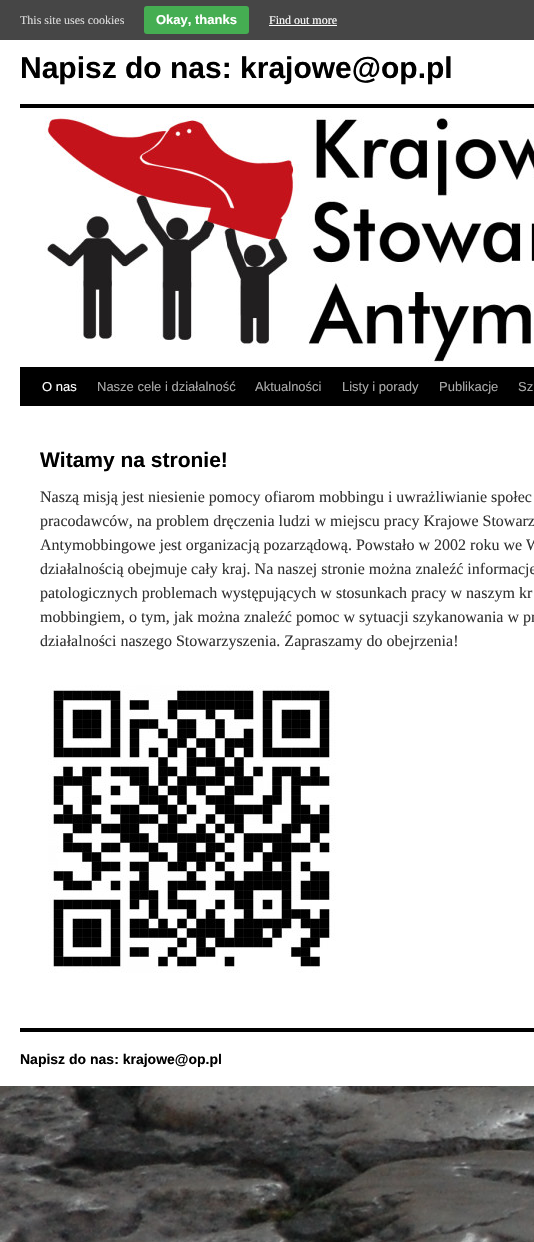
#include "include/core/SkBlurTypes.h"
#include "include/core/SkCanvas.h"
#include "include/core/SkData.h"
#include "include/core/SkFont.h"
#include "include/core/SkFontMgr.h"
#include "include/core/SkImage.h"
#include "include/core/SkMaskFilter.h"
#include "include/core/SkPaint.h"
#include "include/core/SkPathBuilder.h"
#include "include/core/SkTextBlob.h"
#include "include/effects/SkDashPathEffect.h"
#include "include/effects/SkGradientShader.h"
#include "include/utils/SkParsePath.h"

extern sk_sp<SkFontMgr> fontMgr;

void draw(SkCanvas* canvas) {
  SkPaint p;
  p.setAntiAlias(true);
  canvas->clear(SK_ColorWHITE);
  canvas->drawImageRect(SkImages::DeferredFromEncodedData(SkData::MakeFromFileName("images/1.png")), SkRect::MakeLTRB(0, 1086, 534, 1242), SkSamplingOptions());
  p.setColor(SkColorSetRGB(70, 70, 70));
  canvas->drawRect(SkRect::MakeLTRB(0, 0, 534, 40), p);
  p.setColor(SkColorSetRGB(69, 174, 82));
  canvas->drawRoundRect(SkRect::MakeLTRB(144, 6, 249, 34), 3, 3, p);
  p.setColor(SK_ColorWHITE);
  canvas->drawRect(SkRect::MakeLTRB(269, 25, 337, 26), p);
  p.setColor(SK_ColorBLACK);
  canvas->drawRect(SkRect::MakeLTRB(20, 104, 534, 108), p);
  canvas->drawRect(SkRect::MakeLTRB(20, 367, 534, 406), p);
  canvas->drawImageRect(SkImages::DeferredFromEncodedData(SkData::MakeFromFileName("images/2.png")), SkRect::MakeLTRB(44, 116, 534, 363), SkSamplingOptions());
  canvas->drawImageRect(SkImages::DeferredFromEncodedData(SkData::MakeFromFileName("images/3.png")), SkRect::MakeLTRB(48, 685, 336, 973), SkSamplingOptions());
  canvas->drawRect(SkRect::MakeLTRB(20, 1028, 534, 1032), p);
  SkFont font1(fontMgr->matchFamilyStyle("Liberation Serif", SkFontStyle::Normal()), 12);
  font1.setSubpixel(true);
  p.setColor(SkColorSetRGB(221, 221, 221));
  canvas->drawString("This site uses cookies", 20, 24, font1, p);
  SkFont font2(fontMgr->matchFamilyStyle("Liberation Sans", SkFontStyle::Bold()), 13);
  font2.setSubpixel(true);
  p.setColor(SK_ColorWHITE);
  canvas->drawString("Okay, thanks", 156, 24, font2, p);
  canvas->drawString("Find out more", 269, 24, font1, p);
  SkFont font3(fontMgr->matchFamilyStyle("Liberation Sans", SkFontStyle::Bold()), 30);
  font3.setSubpixel(true);
  p.setColor(SK_ColorBLACK);
  canvas->drawString("Napisz do nas: krajowe@op.pl", 20, 78, font3, p);
  SkFont font4(fontMgr->matchFamilyStyle("Liberation Sans", SkFontStyle::Normal()), 13);
  font4.setSubpixel(true);
  p.setColor(SK_ColorWHITE);
  canvas->drawString("O nas", 42, 391, font4, p);
  p.setColor(SkColorSetRGB(170, 170, 170));
  canvas->drawString("Nasze cele i działalność", 97, 391, font4, p);
  canvas->drawString("Aktualności", 255, 391, font4, p);
  canvas->drawString("Listy i porady", 342, 391, font4, p);
  canvas->drawString("Publikacje", 439, 391, font4, p);
  canvas->drawString("Sz", 518, 391, font4, p);
  SkFont font5(fontMgr->matchFamilyStyle("Liberation Sans", SkFontStyle::Bold()), 21);
  font5.setSubpixel(true);
  p.setColor(SK_ColorBLACK);
  canvas->drawString("Witamy na stronie!", 40, 467, font5, p);
  SkFont font6(fontMgr->matchFamilyStyle("Liberation Serif", SkFontStyle::Normal()), 16);
  font6.setSubpixel(true);
  p.setColor(SkColorSetRGB(51, 51, 51));
  canvas->drawString("Naszą misją jest niesienie pomocy ofiarom mobbingu i uwrażliwianie społec", 40, 502, font6, p);
  canvas->drawString("pracodawców, na problem dręczenia ludzi w miejscu pracy Krajowe Stowarz", 40, 526, font6, p);
  canvas->drawString("Antymobbingowe jest organizacją pozarządową. Powstało w 2002 roku we W", 40, 550, font6, p);
  canvas->drawString("działalnością obejmuje cały kraj. Na naszej stronie można znaleźć informacje", 40, 574, font6, p);
  canvas->drawString("patologicznych problemach występujących w stosunkach pracy w naszym kr", 40, 598, font6, p);
  canvas->drawString("mobbingiem, o tym, jak można znaleźć pomoc w sytuacji szykanowania w pr", 40, 622, font6, p);
  canvas->drawString("działalności naszego Stowarzyszenia. Zapraszamy do obejrzenia!", 40, 646, font6, p);
  SkFont font7(fontMgr->matchFamilyStyle("Liberation Sans", SkFontStyle::Bold()), 14);
  font7.setSubpixel(true);
  p.setColor(SK_ColorBLACK);
  canvas->drawString("Napisz do nas: krajowe@op.pl", 20, 1064, font7, p);
}
